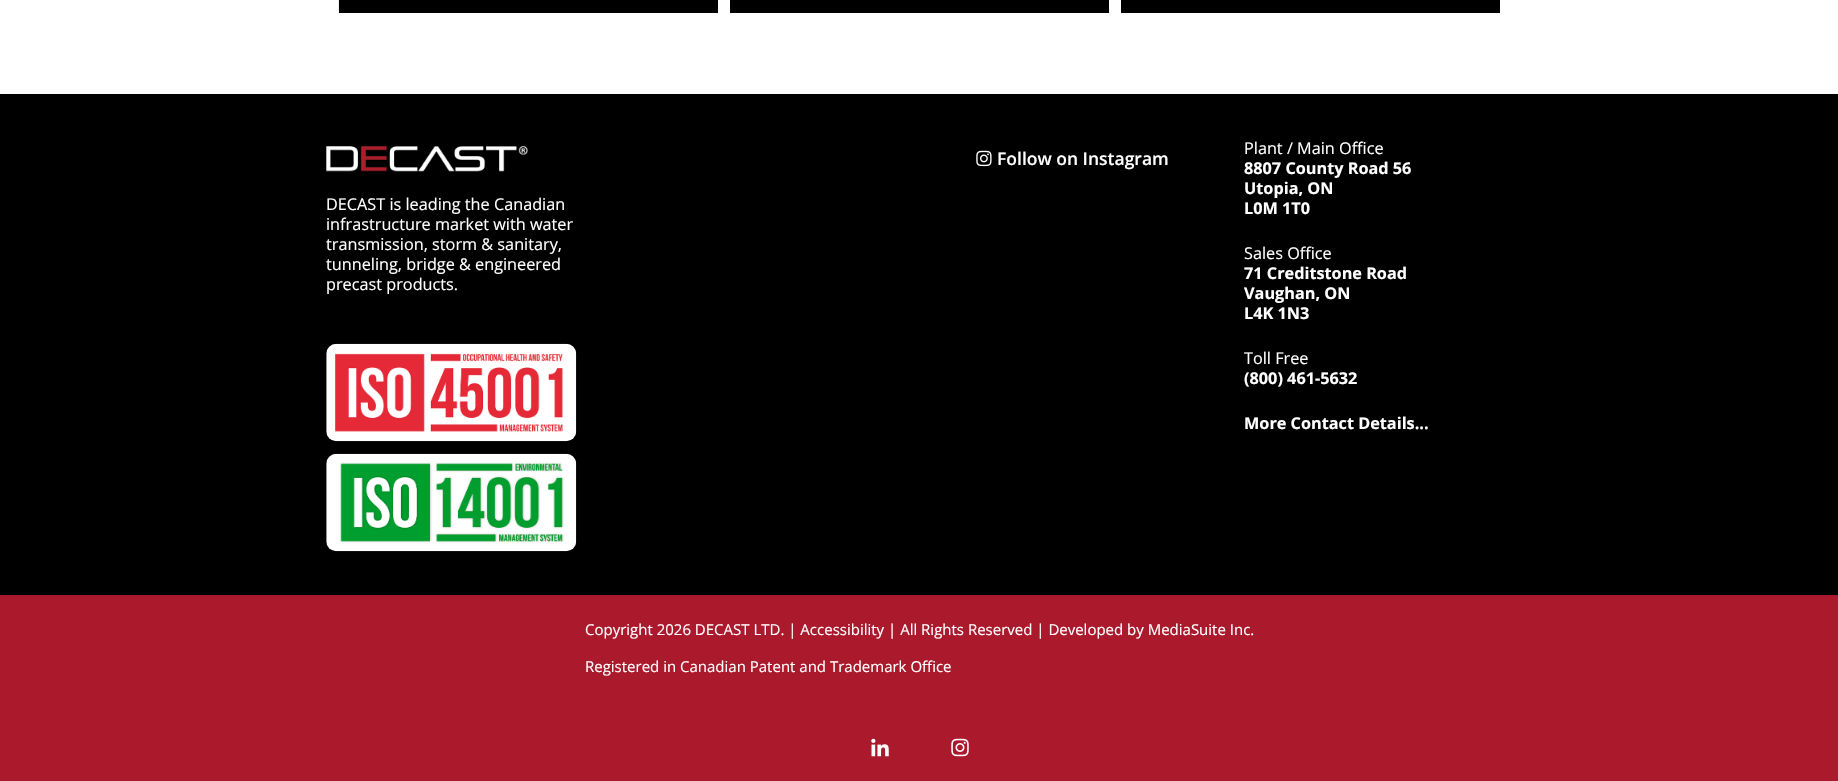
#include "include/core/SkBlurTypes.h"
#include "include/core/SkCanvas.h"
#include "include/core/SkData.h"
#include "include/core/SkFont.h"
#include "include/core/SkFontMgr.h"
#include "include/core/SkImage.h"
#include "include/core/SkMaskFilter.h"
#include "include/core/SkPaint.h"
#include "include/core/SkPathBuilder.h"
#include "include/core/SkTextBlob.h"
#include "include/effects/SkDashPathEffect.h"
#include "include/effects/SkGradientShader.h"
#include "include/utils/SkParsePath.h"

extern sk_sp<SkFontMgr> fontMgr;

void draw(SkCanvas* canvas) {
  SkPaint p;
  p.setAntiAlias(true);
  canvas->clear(SkColorSetRGB(171, 25, 45));
  p.setColor(SK_ColorWHITE);
  canvas->drawRect(SkRect::MakeLTRB(0, 0, 1838, 94), p);
  canvas->drawImageRect(SkImages::DeferredFromEncodedData(SkData::MakeFromFileName("images/1.png")), SkRect::MakeLTRB(338, 0, 339, 12), SkSamplingOptions());
  p.setColor(SK_ColorBLACK);
  canvas->drawRect(SkRect::MakeLTRB(339, 0, 718, 13), p);
  canvas->drawRect(SkRect::MakeLTRB(730, 0, 1109, 13), p);
  canvas->drawRect(SkRect::MakeLTRB(1121, 0, 1500, 13), p);
  canvas->drawRect(SkRect::MakeLTRB(0, 94, 1838, 595), p);
  canvas->drawImageRect(SkImages::DeferredFromEncodedData(SkData::MakeFromFileName("images/2.png")), SkRect::MakeLTRB(976, 150, 992, 167), SkSamplingOptions());
  canvas->drawImageRect(SkImages::DeferredFromEncodedData(SkData::MakeFromFileName("images/3.png")), SkRect::MakeLTRB(326, 146, 528, 172), SkSamplingOptions());
  canvas->drawImageRect(SkImages::DeferredFromEncodedData(SkData::MakeFromFileName("images/4.png")), SkRect::MakeLTRB(326, 343, 577, 442), SkSamplingOptions());
  canvas->drawImageRect(SkImages::DeferredFromEncodedData(SkData::MakeFromFileName("images/5.png")), SkRect::MakeLTRB(326, 453, 577, 552), SkSamplingOptions());
  canvas->drawImageRect(SkImages::DeferredFromEncodedData(SkData::MakeFromFileName("images/6.png")), SkRect::MakeLTRB(871, 738, 889, 757), SkSamplingOptions());
  canvas->drawImageRect(SkImages::DeferredFromEncodedData(SkData::MakeFromFileName("images/7.png")), SkRect::MakeLTRB(951, 738, 969, 757), SkSamplingOptions());
  SkFont font1(fontMgr->matchFamilyStyle("Open Sans", SkFontStyle(600, SkFontStyle::kNormal_Width, SkFontStyle::kUpright_Slant)), 17.5f);
  font1.setSubpixel(true);
  p.setColor(SK_ColorWHITE);
  canvas->drawString("Follow on Instagram", 997, 165, font1, p);
  SkFont font2(fontMgr->matchFamilyStyle("Open Sans", SkFontStyle::Normal()), 16.25f);
  font2.setSubpixel(true);
  canvas->drawString("Plant / Main Office", 1244, 154, font2, p);
  SkFont font3(fontMgr->matchFamilyStyle("Open Sans", SkFontStyle::Bold()), 16.25f);
  font3.setSubpixel(true);
  canvas->drawString("8807 County Road 56", 1244, 174, font3, p);
  canvas->drawString("Utopia, ON", 1244, 194, font3, p);
  canvas->drawString("L0M 1T0", 1244, 214, font3, p);
  canvas->drawString("Sales Office", 1244, 259, font2, p);
  canvas->drawString("71 Creditstone Road", 1244, 279, font3, p);
  canvas->drawString("Vaughan, ON", 1244, 299, font3, p);
  canvas->drawString("L4K 1N3", 1244, 319, font3, p);
  canvas->drawString("Toll Free", 1244, 364, font2, p);
  canvas->drawString("(800) 461-5632", 1244, 384, font3, p);
  canvas->drawString("More Contact Details...", 1244, 429, font3, p);
  canvas->drawString("DECAST is leading the Canadian", 326, 210, font2, p);
  canvas->drawString("infrastructure market with water", 326, 230, font2, p);
  canvas->drawString("transmission, storm & sanitary,", 326, 250, font2, p);
  canvas->drawString("tunneling, bridge & engineered", 326, 270, font2, p);
  canvas->drawString("precast products.", 326, 290, font2, p);
  SkFont font4(fontMgr->matchFamilyStyle("Open Sans", SkFontStyle::Normal()), 15);
  font4.setSubpixel(true);
  canvas->drawString("Copyright 2026 DECAST LTD. | Accessibility | All Rights Reserved | Developed by MediaSuite Inc.", 585, 635, font4, p);
  canvas->drawString("Registered in Canadian Patent and Trademark Office", 585, 672, font4, p);
}
